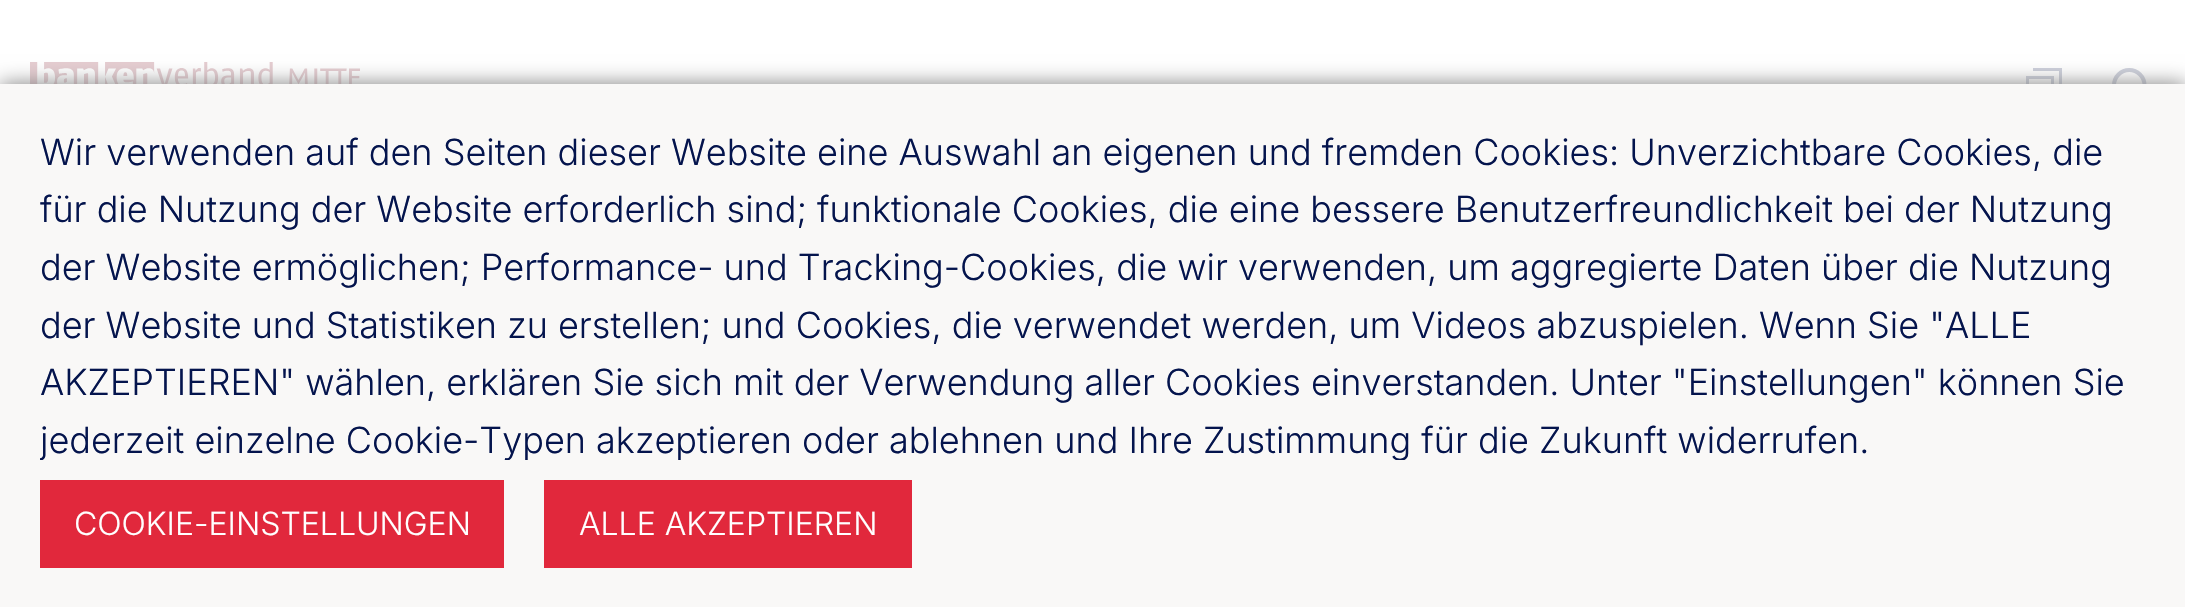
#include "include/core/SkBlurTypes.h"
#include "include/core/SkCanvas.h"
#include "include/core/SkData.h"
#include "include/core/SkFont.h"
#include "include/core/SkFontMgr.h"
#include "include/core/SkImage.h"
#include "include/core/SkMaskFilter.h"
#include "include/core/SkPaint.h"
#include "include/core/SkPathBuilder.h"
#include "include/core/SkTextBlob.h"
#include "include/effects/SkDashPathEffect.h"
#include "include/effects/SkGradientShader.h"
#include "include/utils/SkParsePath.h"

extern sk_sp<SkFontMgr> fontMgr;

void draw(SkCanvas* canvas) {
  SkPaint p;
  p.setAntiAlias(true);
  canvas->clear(SK_ColorWHITE);
  canvas->drawImageRect(SkImages::DeferredFromEncodedData(SkData::MakeFromFileName("images/1.png")), SkRect::MakeLTRB(30, 62, 360, 84), SkSamplingOptions());
  p.setColor(SkColorSetRGB(205, 208, 219));
  canvas->drawPath(SkPathBuilder().moveTo(2026, 112).lineTo(2026, 76).lineTo(2054, 76).lineTo(2054, 112).lineTo(2040, 106).close().moveTo(2029, 107).lineTo(2040, 102).lineTo(2051, 107).lineTo(2051, 79).lineTo(2029, 79).close().moveTo(2059, 105).lineTo(2059, 71).lineTo(2033, 71).lineTo(2033, 68).lineTo(2062, 68).lineTo(2062, 105).close().detach(), p);
  p.setStyle(SkPaint::kStroke_Style);
  p.setStrokeWidth(4);
  canvas->drawPath(SkPathBuilder().moveTo(2140, 96).cubicTo(2146, 90, 2146, 80.5f, 2140, 74.5f).cubicTo(2134, 68.5f, 2124.5f, 68.5f, 2118.5f, 74.5f).cubicTo(2112.5f, 80.5f, 2112.5f, 90, 2118.5f, 96).cubicTo(2124.5f, 101.5f, 2134, 101.5f, 2140, 96).close().detach(), p);
  p.setStyle(SkPaint::kFill_Style);
  p.setColor(SkColorSetRGB(128, 128, 128));
  p.setMaskFilter(SkMaskFilter::MakeBlur(kNormal_SkBlurStyle, 10));
  canvas->drawRect(SkRect::MakeLTRB(0, 84, 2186, 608), p);
  p.setMaskFilter(nullptr);
  p.setColor(SkColorSetRGB(249, 248, 247));
  canvas->drawRect(SkRect::MakeLTRB(0, 84, 2185, 607), p);
  p.setColor(SkColorSetRGB(225, 40, 60));
  canvas->drawRect(SkRect::MakeLTRB(40, 480, 504, 568), p);
  canvas->drawRect(SkRect::MakeLTRB(544, 480, 912, 568), p);
  SkFont font1(fontMgr->matchFamilyStyle("Inter", SkFontStyle(300, SkFontStyle::kNormal_Width, SkFontStyle::kUpright_Slant)), 36);
  font1.setSubpixel(true);
  p.setColor(SkColorSetRGB(4, 20, 77));
  canvas->drawString("Wir verwenden auf den Seiten dieser Website eine Auswahl an eigenen und fremden Cookies: Unverzichtbare Cookies, die", 40, 165, font1, p);
  canvas->drawString("für die Nutzung der Website erforderlich sind; funktionale Cookies, die eine bessere Benutzerfreundlichkeit bei der Nutzung", 40, 222, font1, p);
  canvas->drawString("der Website ermöglichen; Performance- und Tracking-Cookies, die wir verwenden, um aggregierte Daten über die Nutzung", 40, 280, font1, p);
  canvas->drawString("der Website und Statistiken zu erstellen; und Cookies, die verwendet werden, um Videos abzuspielen. Wenn Sie \"ALLE", 40, 338, font1, p);
  canvas->drawString("AKZEPTIEREN\" wählen, erklären Sie sich mit der Verwendung aller Cookies einverstanden. Unter \"Einstellungen\" können Sie", 40, 395, font1, p);
  canvas->save();
  canvas->clipRect(SkRect::MakeLTRB(40, 124, 2146, 460));
  canvas->drawString("jederzeit einzelne Cookie-Typen akzeptieren oder ablehnen und Ihre Zustimmung für die Zukunft widerrufen.", 40, 453, font1, p);
  canvas->restore();
  SkFont font2(fontMgr->matchFamilyStyle("Inter", SkFontStyle(300, SkFontStyle::kNormal_Width, SkFontStyle::kUpright_Slant)), 32);
  font2.setSubpixel(true);
  p.setColor(SK_ColorWHITE);
  canvas->drawString("COOKIE-EINSTELLUNGEN", 74, 535, font2, p);
  canvas->drawString("ALLE AKZEPTIEREN", 579, 535, font2, p);
}
